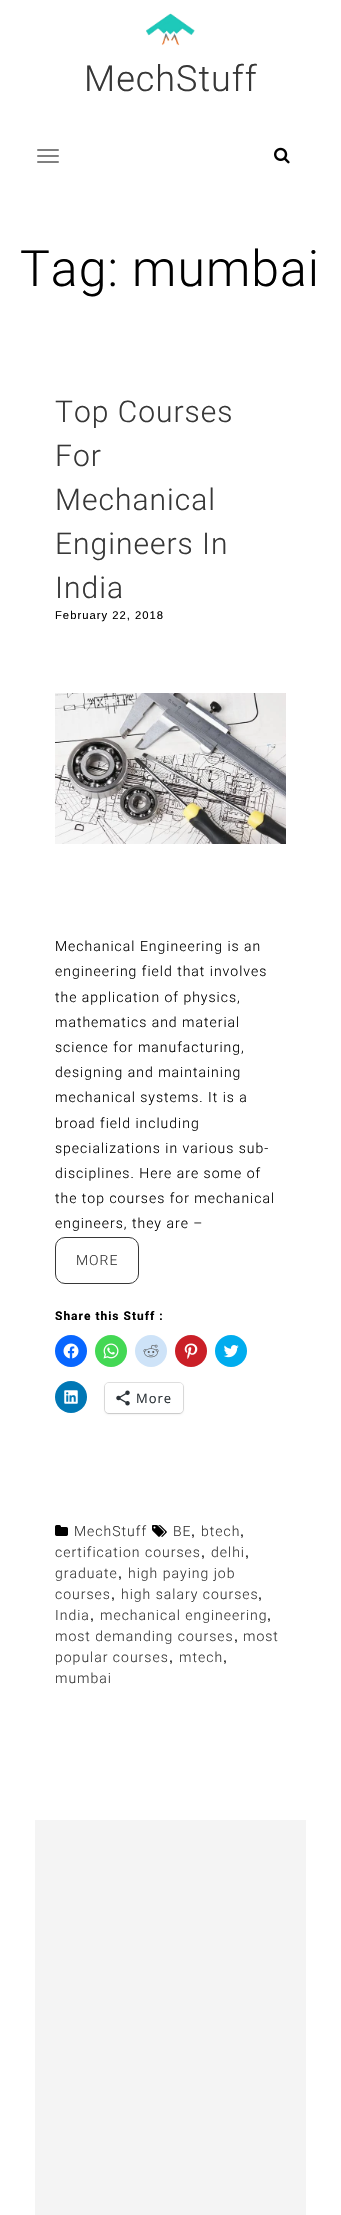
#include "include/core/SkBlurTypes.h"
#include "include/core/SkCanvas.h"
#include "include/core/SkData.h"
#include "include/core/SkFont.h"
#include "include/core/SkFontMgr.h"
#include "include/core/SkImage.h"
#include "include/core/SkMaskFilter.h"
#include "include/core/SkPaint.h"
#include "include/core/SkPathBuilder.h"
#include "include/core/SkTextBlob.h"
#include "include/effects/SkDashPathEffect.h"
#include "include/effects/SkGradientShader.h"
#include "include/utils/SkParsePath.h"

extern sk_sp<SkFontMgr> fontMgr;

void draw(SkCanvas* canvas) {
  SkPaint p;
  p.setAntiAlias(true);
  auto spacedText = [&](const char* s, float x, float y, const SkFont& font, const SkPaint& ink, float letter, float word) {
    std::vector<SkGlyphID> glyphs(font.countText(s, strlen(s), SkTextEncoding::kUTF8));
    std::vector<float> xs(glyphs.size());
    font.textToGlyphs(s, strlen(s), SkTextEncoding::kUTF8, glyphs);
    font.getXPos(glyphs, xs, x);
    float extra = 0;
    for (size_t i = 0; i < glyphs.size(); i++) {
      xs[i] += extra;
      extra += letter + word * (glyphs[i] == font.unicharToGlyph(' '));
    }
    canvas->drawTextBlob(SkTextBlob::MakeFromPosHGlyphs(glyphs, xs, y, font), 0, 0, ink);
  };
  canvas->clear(SK_ColorWHITE);
  canvas->drawImageRect(SkImages::DeferredFromEncodedData(SkData::MakeFromFileName("images/1.png")), SkRect::MakeLTRB(146, 13, 195, 46), SkSamplingOptions());
  p.setColor(SkColorSetRGB(128, 128, 128));
  canvas->drawRoundRect(SkRect::MakeLTRB(37, 149, 59, 151), 1, 1, p);
  canvas->drawRoundRect(SkRect::MakeLTRB(37, 155, 59, 157), 1, 1, p);
  canvas->drawRoundRect(SkRect::MakeLTRB(37, 161, 59, 163), 1, 1, p);
  canvas->drawImageRect(SkImages::DeferredFromEncodedData(SkData::MakeFromFileName("images/2.png")), SkRect::MakeLTRB(274, 147, 290, 164), SkSamplingOptions());
  canvas->drawImageRect(SkImages::DeferredFromEncodedData(SkData::MakeFromFileName("images/3.png")), SkRect::MakeLTRB(55, 693, 286, 844), SkSamplingOptions());
  p.setStyle(SkPaint::kStroke_Style);
  p.setStrokeWidth(1);
  p.setColor(SkColorSetRGB(55, 55, 55));
  canvas->drawRoundRect(SkRect::MakeLTRB(55.5f, 1237.5f, 138.5f, 1283.5f), 9.5f, 9.5f, p);
  p.setStyle(SkPaint::kFill_Style);
  p.setColor(SkColorSetRGB(8, 102, 255));
  canvas->drawCircle(71, 1351, 16, p);
  canvas->drawImageRect(SkImages::DeferredFromEncodedData(SkData::MakeFromFileName("images/4.png")), SkRect::MakeLTRB(63, 1343, 79, 1359), SkSamplingOptions());
  p.setColor(SkColorSetRGB(67, 216, 84));
  canvas->drawCircle(111, 1351, 16, p);
  canvas->drawImageRect(SkImages::DeferredFromEncodedData(SkData::MakeFromFileName("images/5.png")), SkRect::MakeLTRB(103, 1343, 119, 1359), SkSamplingOptions());
  p.setColor(SkColorSetRGB(206, 227, 248));
  canvas->drawCircle(151, 1351, 16, p);
  canvas->drawImageRect(SkImages::DeferredFromEncodedData(SkData::MakeFromFileName("images/6.png")), SkRect::MakeLTRB(143, 1344, 159, 1358), SkSamplingOptions());
  p.setColor(SkColorSetRGB(202, 31, 39));
  canvas->drawCircle(191, 1351, 16, p);
  canvas->drawImageRect(SkImages::DeferredFromEncodedData(SkData::MakeFromFileName("images/7.png")), SkRect::MakeLTRB(184, 1343, 198, 1359), SkSamplingOptions());
  p.setColor(SkColorSetRGB(0, 172, 238));
  canvas->drawCircle(231, 1351, 16, p);
  canvas->drawImageRect(SkImages::DeferredFromEncodedData(SkData::MakeFromFileName("images/8.png")), SkRect::MakeLTRB(223, 1345, 239, 1358), SkSamplingOptions());
  p.setColor(SkColorSetRGB(0, 119, 181));
  canvas->drawCircle(71, 1397, 16, p);
  canvas->drawImageRect(SkImages::DeferredFromEncodedData(SkData::MakeFromFileName("images/9.png")), SkRect::MakeLTRB(64, 1390, 78, 1404), SkSamplingOptions());
  p.setStyle(SkPaint::kStroke_Style);
  p.setColor(SkColorSetRGB(224, 224, 224));
  canvas->drawRoundRect(SkRect::MakeLTRB(104.5f, 1382.5f, 183.5f, 1413.5f), 4.5f, 4.5f, p);
  p.setStyle(SkPaint::kFill_Style);
  p.setColor(SkColorSetARGB(31, 0, 0, 0));
  p.setMaskFilter(SkMaskFilter::MakeBlur(kNormal_SkBlurStyle, 1));
  canvas->drawRoundRect(SkRect::MakeLTRB(105, 1384, 183, 1414), 4, 4, p);
  p.setMaskFilter(nullptr);
  p.setColor(SK_ColorWHITE);
  canvas->drawRoundRect(SkRect::MakeLTRB(105, 1383, 183, 1413), 4, 4, p);
  canvas->drawImageRect(SkImages::DeferredFromEncodedData(SkData::MakeFromFileName("images/10.png")), SkRect::MakeLTRB(116, 1390, 130, 1406), SkSamplingOptions());
  canvas->drawImageRect(SkImages::DeferredFromEncodedData(SkData::MakeFromFileName("images/11.png")), SkRect::MakeLTRB(55, 1525, 68, 1536), SkSamplingOptions());
  canvas->drawImageRect(SkImages::DeferredFromEncodedData(SkData::MakeFromFileName("images/12.png")), SkRect::MakeLTRB(152, 1525, 167, 1537), SkSamplingOptions());
  p.setColor(SkColorSetRGB(244, 244, 244));
  canvas->drawRect(SkRect::MakeLTRB(35, 1820, 306, 2215), p);
  SkFont font1(fontMgr->matchFamilyStyle("Roboto", SkFontStyle(300, SkFontStyle::kNormal_Width, SkFontStyle::kUpright_Slant)), 36);
  font1.setSubpixel(true);
  p.setColor(SkColorSetRGB(55, 55, 55));
  spacedText("MechStuff", 84, 91, font1, p, 1, 0);
  SkFont font2(fontMgr->matchFamilyStyle("Roboto", SkFontStyle(300, SkFontStyle::kNormal_Width, SkFontStyle::kUpright_Slant)), 50);
  font2.setSubpixel(true);
  p.setColor(SK_ColorBLACK);
  spacedText("Tag: mumbai", 20, 286, font2, p, 1, 0);
  SkFont font3(fontMgr->matchFamilyStyle("Roboto", SkFontStyle(300, SkFontStyle::kNormal_Width, SkFontStyle::kUpright_Slant)), 30);
  font3.setSubpixel(true);
  p.setColor(SkColorSetRGB(55, 55, 55));
  spacedText("Top Courses", 55, 422, font3, p, 1, 0);
  spacedText("For", 55, 466, font3, p, 1, 0);
  spacedText("Mechanical", 55, 510, font3, p, 1, 0);
  spacedText("Engineers In", 55, 554, font3, p, 1, 0);
  spacedText("India", 55, 598, font3, p, 1, 0);
  SkFont font4(fontMgr->matchFamilyStyle("Liberation Sans", SkFontStyle::Normal()), 11.25f);
  font4.setSubpixel(true);
  p.setColor(SK_ColorBLACK);
  spacedText("February 22, 2018", 55, 619, font4, p, 1, 0);
  SkFont font5(fontMgr->matchFamilyStyle("Roboto", SkFontStyle(300, SkFontStyle::kNormal_Width, SkFontStyle::kUpright_Slant)), 14);
  font5.setSubpixel(true);
  spacedText("Mechanical Engineering is an", 55, 951, font5, p, 1, 0);
  spacedText("engineering field that involves", 55, 976, font5, p, 1, 0);
  spacedText("the application of physics,", 55, 1002, font5, p, 1, 0);
  spacedText("mathematics and material", 55, 1027, font5, p, 1, 0);
  spacedText("science for manufacturing,", 55, 1052, font5, p, 1, 0);
  spacedText("designing and maintaining", 55, 1077, font5, p, 1, 0);
  spacedText("mechanical systems. It is a", 55, 1102, font5, p, 1, 0);
  spacedText("broad field including", 55, 1128, font5, p, 1, 0);
  spacedText("specializations in various sub-", 55, 1153, font5, p, 1, 0);
  spacedText("disciplines. Here are some of", 55, 1178, font5, p, 1, 0);
  spacedText("the top courses for mechanical", 55, 1203, font5, p, 1, 0);
  spacedText("engineers, they are –", 55, 1228, font5, p, 1, 0);
  p.setColor(SkColorSetRGB(55, 55, 55));
  spacedText("MORE", 76, 1265, font5, p, 1, 0);
  SkFont font6(fontMgr->matchFamilyStyle("Roboto", SkFontStyle::Bold()), 12);
  font6.setSubpixel(true);
  p.setColor(SK_ColorBLACK);
  spacedText("Share this Stuff :", 55, 1320, font6, p, 1, 0);
  SkFont font7(fontMgr->matchFamilyStyle("Open Sans", SkFontStyle::Normal()), 13);
  font7.setSubpixel(true);
  p.setColor(SkColorSetRGB(44, 51, 56));
  spacedText("More", 136, 1403, font7, p, 1, 0);
  p.setColor(SkColorSetRGB(55, 55, 55));
  spacedText("MechStuff", 74, 1536, font5, p, 1, 0);
  spacedText("BE", 173, 1536, font5, p, 1, 0);
  SkFont font8(fontMgr->matchFamilyStyle("Liberation Sans", SkFontStyle::Normal()), 14);
  font8.setSubpixel(true);
  p.setColor(SK_ColorBLACK);
  spacedText(",", 191, 1536, font8, p, 1, 0);
  p.setColor(SkColorSetRGB(55, 55, 55));
  spacedText("btech", 201, 1536, font5, p, 1, 0);
  p.setColor(SK_ColorBLACK);
  spacedText(",", 240, 1536, font8, p, 1, 0);
  p.setColor(SkColorSetRGB(55, 55, 55));
  spacedText("certification courses", 55, 1557, font5, p, 1, 0);
  p.setColor(SK_ColorBLACK);
  spacedText(",", 201, 1557, font8, p, 1, 0);
  p.setColor(SkColorSetRGB(55, 55, 55));
  spacedText("delhi", 211, 1557, font5, p, 1, 0);
  p.setColor(SK_ColorBLACK);
  spacedText(",", 245, 1557, font8, p, 1, 0);
  p.setColor(SkColorSetRGB(55, 55, 55));
  spacedText("graduate", 55, 1578, font5, p, 1, 0);
  p.setColor(SK_ColorBLACK);
  spacedText(",", 118, 1578, font8, p, 1, 0);
  p.setColor(SkColorSetRGB(55, 55, 55));
  spacedText("high paying job", 128, 1578, font5, p, 1, 0);
  spacedText("courses", 55, 1599, font5, p, 1, 0);
  p.setColor(SK_ColorBLACK);
  spacedText(",", 111, 1599, font8, p, 1, 0);
  p.setColor(SkColorSetRGB(55, 55, 55));
  spacedText("high salary courses", 121, 1599, font5, p, 1, 0);
  p.setColor(SK_ColorBLACK);
  spacedText(",", 258, 1599, font8, p, 1, 0);
  p.setColor(SkColorSetRGB(55, 55, 55));
  spacedText("India", 55, 1620, font5, p, 1, 0);
  p.setColor(SK_ColorBLACK);
  spacedText(",", 90, 1620, font8, p, 1, 0);
  p.setColor(SkColorSetRGB(55, 55, 55));
  spacedText("mechanical engineering", 100, 1620, font5, p, 1, 0);
  p.setColor(SK_ColorBLACK);
  spacedText(",", 267, 1620, font8, p, 1, 0);
  p.setColor(SkColorSetRGB(55, 55, 55));
  spacedText("most demanding courses", 55, 1641, font5, p, 1, 0);
  p.setColor(SK_ColorBLACK);
  spacedText(",", 234, 1641, font8, p, 1, 0);
  p.setColor(SkColorSetRGB(55, 55, 55));
  spacedText("most", 243, 1641, font5, p, 1, 0);
  spacedText("popular courses", 55, 1662, font5, p, 1, 0);
  p.setColor(SK_ColorBLACK);
  spacedText(",", 169, 1662, font8, p, 1, 0);
  p.setColor(SkColorSetRGB(55, 55, 55));
  spacedText("mtech", 179, 1662, font5, p, 1, 0);
  p.setColor(SK_ColorBLACK);
  spacedText(",", 223, 1662, font8, p, 1, 0);
  p.setColor(SkColorSetRGB(55, 55, 55));
  spacedText("mumbai", 55, 1683, font5, p, 1, 0);
}
